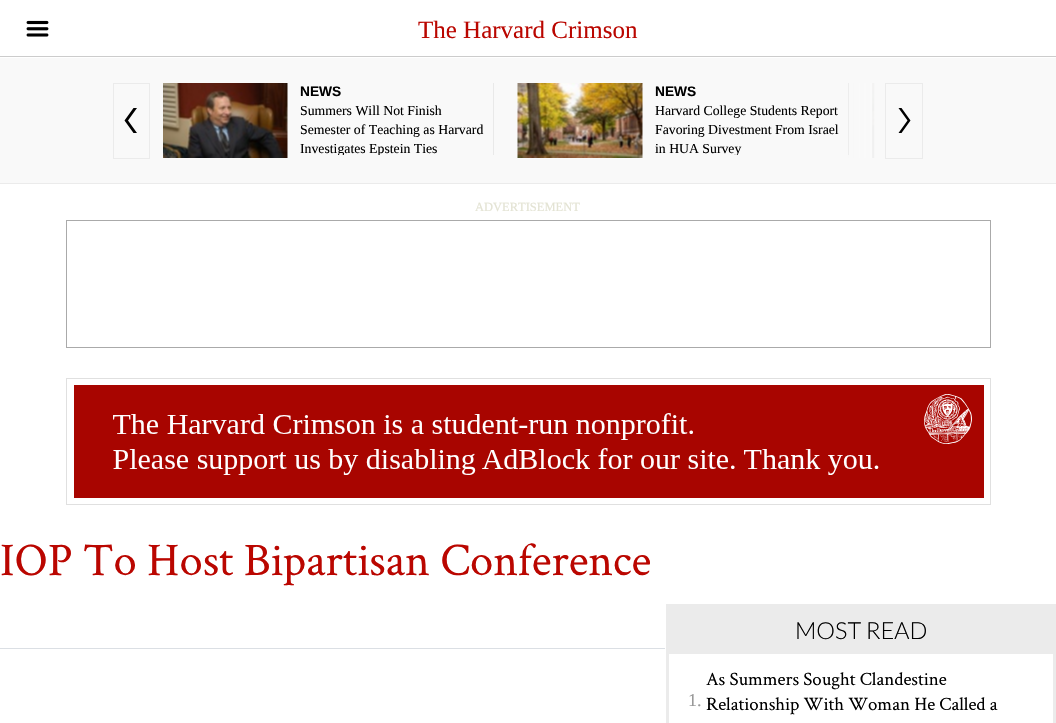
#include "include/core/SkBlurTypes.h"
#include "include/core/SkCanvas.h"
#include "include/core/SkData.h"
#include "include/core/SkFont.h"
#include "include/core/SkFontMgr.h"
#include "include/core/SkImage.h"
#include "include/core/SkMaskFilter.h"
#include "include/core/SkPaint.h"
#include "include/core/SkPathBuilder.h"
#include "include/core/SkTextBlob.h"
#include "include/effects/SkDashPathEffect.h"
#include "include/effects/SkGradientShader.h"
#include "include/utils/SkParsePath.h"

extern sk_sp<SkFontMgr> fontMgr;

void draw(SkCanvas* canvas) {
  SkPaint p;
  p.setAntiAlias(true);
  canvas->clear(SK_ColorWHITE);
  p.setColor(SkColorSetRGB(204, 204, 204));
  canvas->drawRect(SkRect::MakeLTRB(0, 56, 1056, 57), p);
  canvas->drawImageRect(SkImages::DeferredFromEncodedData(SkData::MakeFromFileName("images/1.png")), SkRect::MakeLTRB(26, 20, 49, 37), SkSamplingOptions());
  p.setColor(SkColorSetRGB(249, 249, 249));
  canvas->drawRect(SkRect::MakeLTRB(0, 58, 1056, 183), p);
  p.setColor(SkColorSetRGB(235, 235, 235));
  canvas->drawRect(SkRect::MakeLTRB(0, 183, 1056, 184), p);
  p.setStyle(SkPaint::kStroke_Style);
  p.setStrokeWidth(1);
  canvas->drawRect(SkRect::MakeLTRB(113.5f, 83.5f, 149.5f, 158.5f), p);
  p.setStyle(SkPaint::kFill_Style);
  p.setColor(SK_ColorBLACK);
  canvas->drawPath(SkPathBuilder().moveTo(137, 108).lineTo(133.5f, 108).lineTo(124.5f, 120.5f).lineTo(133.5f, 133).lineTo(137, 133).lineTo(128, 120.5f).close().detach(), p);
  canvas->drawImageRect(SkImages::DeferredFromEncodedData(SkData::MakeFromFileName("images/2.png")), SkRect::MakeLTRB(163, 83, 288, 158), SkSamplingOptions());
  p.setColor(SkColorSetRGB(233, 233, 233));
  canvas->drawRect(SkRect::MakeLTRB(493, 83, 494, 155), p);
  canvas->drawImageRect(SkImages::DeferredFromEncodedData(SkData::MakeFromFileName("images/3.png")), SkRect::MakeLTRB(517, 83, 643, 158), SkSamplingOptions());
  canvas->drawRect(SkRect::MakeLTRB(848, 83, 849, 155), p);
  canvas->drawImageRect(SkImages::DeferredFromEncodedData(SkData::MakeFromFileName("images/4.png")), SkRect::MakeLTRB(872, 83, 875, 158), SkSamplingOptions());
  {
    const SkColor colors[] = {SkColorSetRGB(249, 249, 249), SkColorSetARGB(0, 249, 249, 249)};
    const float stops[] = {0, 1};
    const SkPoint ends[] = {{875, 120}, {838, 120}};
    p.setShader(SkGradientShader::MakeLinear(ends, colors, stops, 2, SkTileMode::kClamp));
    p.setAlpha(255);
  }
  canvas->drawRect(SkRect::MakeLTRB(848, 83, 875, 158), p);
  p.setStyle(SkPaint::kStroke_Style);
  p.setShader(nullptr);
  p.setColor(SkColorSetRGB(235, 235, 235));
  canvas->drawRect(SkRect::MakeLTRB(885.5f, 83.5f, 922.5f, 158.5f), p);
  p.setStyle(SkPaint::kFill_Style);
  p.setColor(SK_ColorBLACK);
  canvas->drawPath(SkPathBuilder().moveTo(901.5f, 108).lineTo(898.5f, 108).lineTo(907.5f, 120.5f).lineTo(898.5f, 133).lineTo(901.5f, 133).lineTo(910.5f, 120.5f).close().detach(), p);
  p.setStyle(SkPaint::kStroke_Style);
  p.setColor(SkColorSetRGB(170, 170, 170));
  canvas->drawRect(SkRect::MakeLTRB(66.5f, 220.5f, 990.5f, 347.5f), p);
  p.setColor(SkColorSetRGB(224, 224, 224));
  canvas->drawRect(SkRect::MakeLTRB(66.5f, 378.5f, 990.5f, 504.5f), p);
  p.setStyle(SkPaint::kFill_Style);
  p.setColor(SkColorSetRGB(168, 5, 0));
  canvas->drawRect(SkRect::MakeLTRB(74, 385, 984, 498), p);
  canvas->drawImageRect(SkImages::DeferredFromEncodedData(SkData::MakeFromFileName("images/5.png")), SkRect::MakeLTRB(113, 394, 972, 475), SkSamplingOptions());
  p.setColor(SkColorSetRGB(219, 223, 228));
  canvas->drawRect(SkRect::MakeLTRB(0, 648, 665, 649), p);
  p.setStyle(SkPaint::kStroke_Style);
  p.setStrokeWidth(3);
  p.setColor(SkColorSetRGB(235, 235, 235));
  canvas->drawRect(SkRect::MakeLTRB(667.5f, 605.5f, 1054.5f, 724.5f), p);
  p.setStyle(SkPaint::kFill_Style);
  canvas->drawRect(SkRect::MakeLTRB(669, 607, 1053, 654), p);
  SkFont font1(fontMgr->matchFamilyStyle("Liberation Serif", SkFontStyle::Normal()), 25);
  font1.setSubpixel(true);
  p.setColor(SkColorSetRGB(186, 6, 0));
  canvas->drawString("The Harvard Crimson", 418, 38, font1, p);
  SkFont font2(fontMgr->matchFamilyStyle("Liberation Sans", SkFontStyle::Bold()), 13.75f);
  font2.setSubpixel(true);
  p.setColor(SK_ColorBLACK);
  canvas->drawString("NEWS", 300, 96, font2, p);
  SkFont font3(fontMgr->matchFamilyStyle("Liberation Serif", SkFontStyle::Normal()), 13.75f);
  font3.setSubpixel(true);
  canvas->drawString("Summers Will Not Finish", 300, 115, font3, p);
  canvas->drawString("Semester of Teaching as Harvard", 300, 134, font3, p);
  canvas->save();
  canvas->clipRect(SkRect::MakeLTRB(300, 83, 493, 155));
  canvas->drawString("Investigates Epstein Ties", 300, 153, font3, p);
  canvas->restore();
  canvas->drawString("NEWS", 655, 96, font2, p);
  canvas->drawString("Harvard College Students Report", 655, 115, font3, p);
  canvas->drawString("Favoring Divestment From Israel", 655, 134, font3, p);
  canvas->save();
  canvas->clipRect(SkRect::MakeLTRB(655, 83, 848, 155));
  canvas->drawString("in HUA Survey", 655, 153, font3, p);
  canvas->restore();
  SkFont font4(fontMgr->matchFamilyStyle("Liberation Serif", SkFontStyle::Normal()), 12.5f);
  font4.setSubpixel(true);
  p.setColor(SkColorSetRGB(227, 227, 211));
  canvas->drawString("ADVERTISEMENT", 475, 211, font4, p);
  SkFont font5(fontMgr->matchFamilyStyle("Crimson", SkFontStyle::Normal()), 46.75f);
  font5.setSubpixel(true);
  p.setColor(SkColorSetRGB(186, 6, 0));
  canvas->drawString("IOP To Host Bipartisan Conference", 0, 575, font5, p);
  SkFont font6(fontMgr->matchFamilyStyle("Lato", SkFontStyle(300, SkFontStyle::kNormal_Width, SkFontStyle::kUpright_Slant)), 23.5f);
  font6.setSubpixel(true);
  p.setColor(SK_ColorBLACK);
  canvas->drawString("MOST READ", 795, 639, font6, p);
  SkFont font7(fontMgr->matchFamilyStyle("Liberation Serif", SkFontStyle::Normal()), 18);
  font7.setSubpixel(true);
  p.setColor(SkColorSetRGB(153, 153, 153));
  canvas->drawString("1.", 688, 706, font7, p);
  SkFont font8(fontMgr->matchFamilyStyle("Crimson", SkFontStyle::Normal()), 18.9f);
  font8.setSubpixel(true);
  p.setColor(SK_ColorBLACK);
  canvas->drawString("As Summers Sought Clandestine", 706, 685, font8, p);
  canvas->drawString("Relationship With Woman He Called a", 706, 710, font8, p);
}
